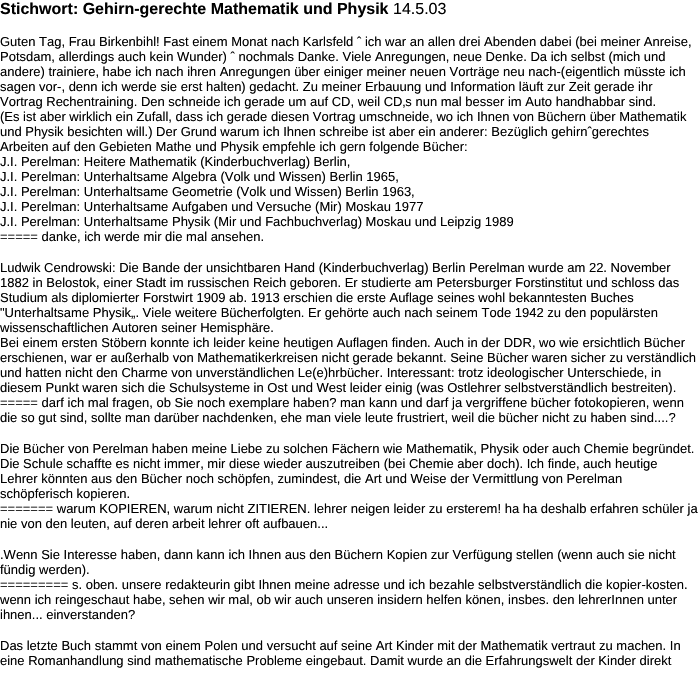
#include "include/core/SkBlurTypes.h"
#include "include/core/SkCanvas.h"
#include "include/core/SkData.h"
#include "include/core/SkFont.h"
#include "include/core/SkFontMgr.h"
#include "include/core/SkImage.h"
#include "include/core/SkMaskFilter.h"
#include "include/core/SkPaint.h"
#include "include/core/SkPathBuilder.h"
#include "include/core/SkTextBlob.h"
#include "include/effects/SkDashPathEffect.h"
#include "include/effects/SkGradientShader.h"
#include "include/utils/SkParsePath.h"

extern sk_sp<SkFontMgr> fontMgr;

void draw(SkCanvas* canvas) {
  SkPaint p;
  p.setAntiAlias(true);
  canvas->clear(SK_ColorWHITE);
  SkFont font1(fontMgr->matchFamilyStyle("Liberation Sans", SkFontStyle::Bold()), 16);
  font1.setSubpixel(true);
  p.setColor(SK_ColorBLACK);
  canvas->drawString("Stichwort: Gehirn-gerechte Mathematik und Physik", 0, 14, font1, p);
  SkFont font2(fontMgr->matchFamilyStyle("Liberation Sans", SkFontStyle::Normal()), 16);
  font2.setSubpixel(true);
  canvas->drawString("14.5.03", 393, 14, font2, p);
  SkFont font3(fontMgr->matchFamilyStyle("Liberation Sans", SkFontStyle::Normal()), 13);
  font3.setSubpixel(true);
  canvas->drawString("Guten Tag, Frau Birkenbihl! Fast einem Monat nach Karlsfeld ˆ ich war an allen drei Abenden dabei (bei meiner Anreise,", 0, 46, font3, p);
  canvas->drawString("Potsdam, allerdings auch kein Wunder) ˆ nochmals Danke. Viele Anregungen, neue Denke. Da ich selbst (mich und", 0, 61, font3, p);
  canvas->drawString("andere) trainiere, habe ich nach ihren Anregungen über einiger meiner neuen Vorträge neu nach-(eigentlich müsste ich", 0, 76, font3, p);
  canvas->drawString("sagen vor-, denn ich werde sie erst halten) gedacht. Zu meiner Erbauung und Information läuft zur Zeit gerade ihr", 0, 91, font3, p);
  canvas->drawString("Vortrag Rechentraining. Den schneide ich gerade um auf CD, weil CD‚s nun mal besser im Auto handhabbar sind.", 0, 106, font3, p);
  canvas->drawString("(Es ist aber wirklich ein Zufall, dass ich gerade diesen Vortrag umschneide, wo ich Ihnen von Büchern über Mathematik", 0, 121, font3, p);
  canvas->drawString("und Physik besichten will.) Der Grund warum ich Ihnen schreibe ist aber ein anderer: Bezüglich gehirnˆgerechtes", 0, 136, font3, p);
  canvas->drawString("Arbeiten auf den Gebieten Mathe und Physik empfehle ich gern folgende Bücher:", 0, 151, font3, p);
  canvas->drawString("J.I. Perelman: Heitere Mathematik (Kinderbuchverlag) Berlin,", 0, 166, font3, p);
  canvas->drawString("J.I. Perelman: Unterhaltsame Algebra (Volk und Wissen) Berlin 1965,", 0, 181, font3, p);
  canvas->drawString("J.I. Perelman: Unterhaltsame Geometrie (Volk und Wissen) Berlin 1963,", 0, 196, font3, p);
  canvas->drawString("J.I. Perelman: Unterhaltsame Aufgaben und Versuche (Mir) Moskau 1977", 0, 211, font3, p);
  canvas->drawString("J.I. Perelman: Unterhaltsame Physik (Mir und Fachbuchverlag) Moskau und Leipzig 1989", 0, 226, font3, p);
  canvas->drawString("===== danke, ich werde mir die mal ansehen.", 0, 241, font3, p);
  canvas->drawString("Ludwik Cendrowski: Die Bande der unsichtbaren Hand (Kinderbuchverlag) Berlin Perelman wurde am 22. November", 0, 272, font3, p);
  canvas->drawString("1882 in Belostok, einer Stadt im russischen Reich geboren. Er studierte am Petersburger Forstinstitut und schloss das", 0, 287, font3, p);
  canvas->drawString("Studium als diplomierter Forstwirt 1909 ab. 1913 erschien die erste Auflage seines wohl bekanntesten Buches", 0, 302, font3, p);
  canvas->drawString("\"Unterhaltsame Physik„. Viele weitere Bücherfolgten. Er gehörte auch nach seinem Tode 1942 zu den populärsten", 0, 317, font3, p);
  canvas->drawString("wissenschaftlichen Autoren seiner Hemisphäre.", 0, 332, font3, p);
  canvas->drawString("Bei einem ersten Stöbern konnte ich leider keine heutigen Auflagen finden. Auch in der DDR, wo wie ersichtlich Bücher", 0, 347, font3, p);
  canvas->drawString("erschienen, war er außerhalb von Mathematikerkreisen nicht gerade bekannt. Seine Bücher waren sicher zu verständlich", 0, 362, font3, p);
  canvas->drawString("und hatten nicht den Charme von unverständlichen Le(e)hrbücher. Interessant: trotz ideologischer Unterschiede, in", 0, 377, font3, p);
  canvas->drawString("diesem Punkt waren sich die Schulsysteme in Ost und West leider einig (was Ostlehrer selbstverständlich bestreiten).", 0, 392, font3, p);
  canvas->drawString("===== darf ich mal fragen, ob Sie noch exemplare haben? man kann und darf ja vergriffene bücher fotokopieren, wenn", 0, 407, font3, p);
  canvas->drawString("die so gut sind, sollte man darüber nachdenken, ehe man viele leute frustriert, weil die bücher nicht zu haben sind....?", 0, 422, font3, p);
  canvas->drawString("Die Bücher von Perelman haben meine Liebe zu solchen Fächern wie Mathematik, Physik oder auch Chemie begründet.", 0, 453, font3, p);
  canvas->drawString("Die Schule schaffte es nicht immer, mir diese wieder auszutreiben (bei Chemie aber doch). Ich finde, auch heutige", 0, 468, font3, p);
  canvas->drawString("Lehrer könnten aus den Bücher noch schöpfen, zumindest, die Art und Weise der Vermittlung von Perelman", 0, 483, font3, p);
  canvas->drawString("schöpferisch kopieren.", 0, 498, font3, p);
  canvas->drawString("======= warum KOPIEREN, warum nicht ZITIEREN. lehrer neigen leider zu ersterem! ha ha deshalb erfahren schüler ja", 0, 513, font3, p);
  canvas->drawString("nie von den leuten, auf deren arbeit lehrer oft aufbauen...", 0, 528, font3, p);
  canvas->drawString(".Wenn Sie Interesse haben, dann kann ich Ihnen aus den Büchern Kopien zur Verfügung stellen (wenn auch sie nicht", 0, 559, font3, p);
  canvas->drawString("fündig werden).", 0, 574, font3, p);
  canvas->drawString("========= s. oben. unsere redakteurin gibt Ihnen meine adresse und ich bezahle selbstverständlich die kopier-kosten.", 0, 589, font3, p);
  canvas->drawString("wenn ich reingeschaut habe, sehen wir mal, ob wir auch unseren insidern helfen könen, insbes. den lehrerInnen unter", 0, 604, font3, p);
  canvas->drawString("ihnen... einverstanden?", 0, 619, font3, p);
  canvas->drawString("Das letzte Buch stammt von einem Polen und versucht auf seine Art Kinder mit der Mathematik vertraut zu machen. In", 0, 650, font3, p);
  canvas->drawString("eine Romanhandlung sind mathematische Probleme eingebaut. Damit wurde an die Erfahrungswelt der Kinder direkt", 0, 665, font3, p);
}
